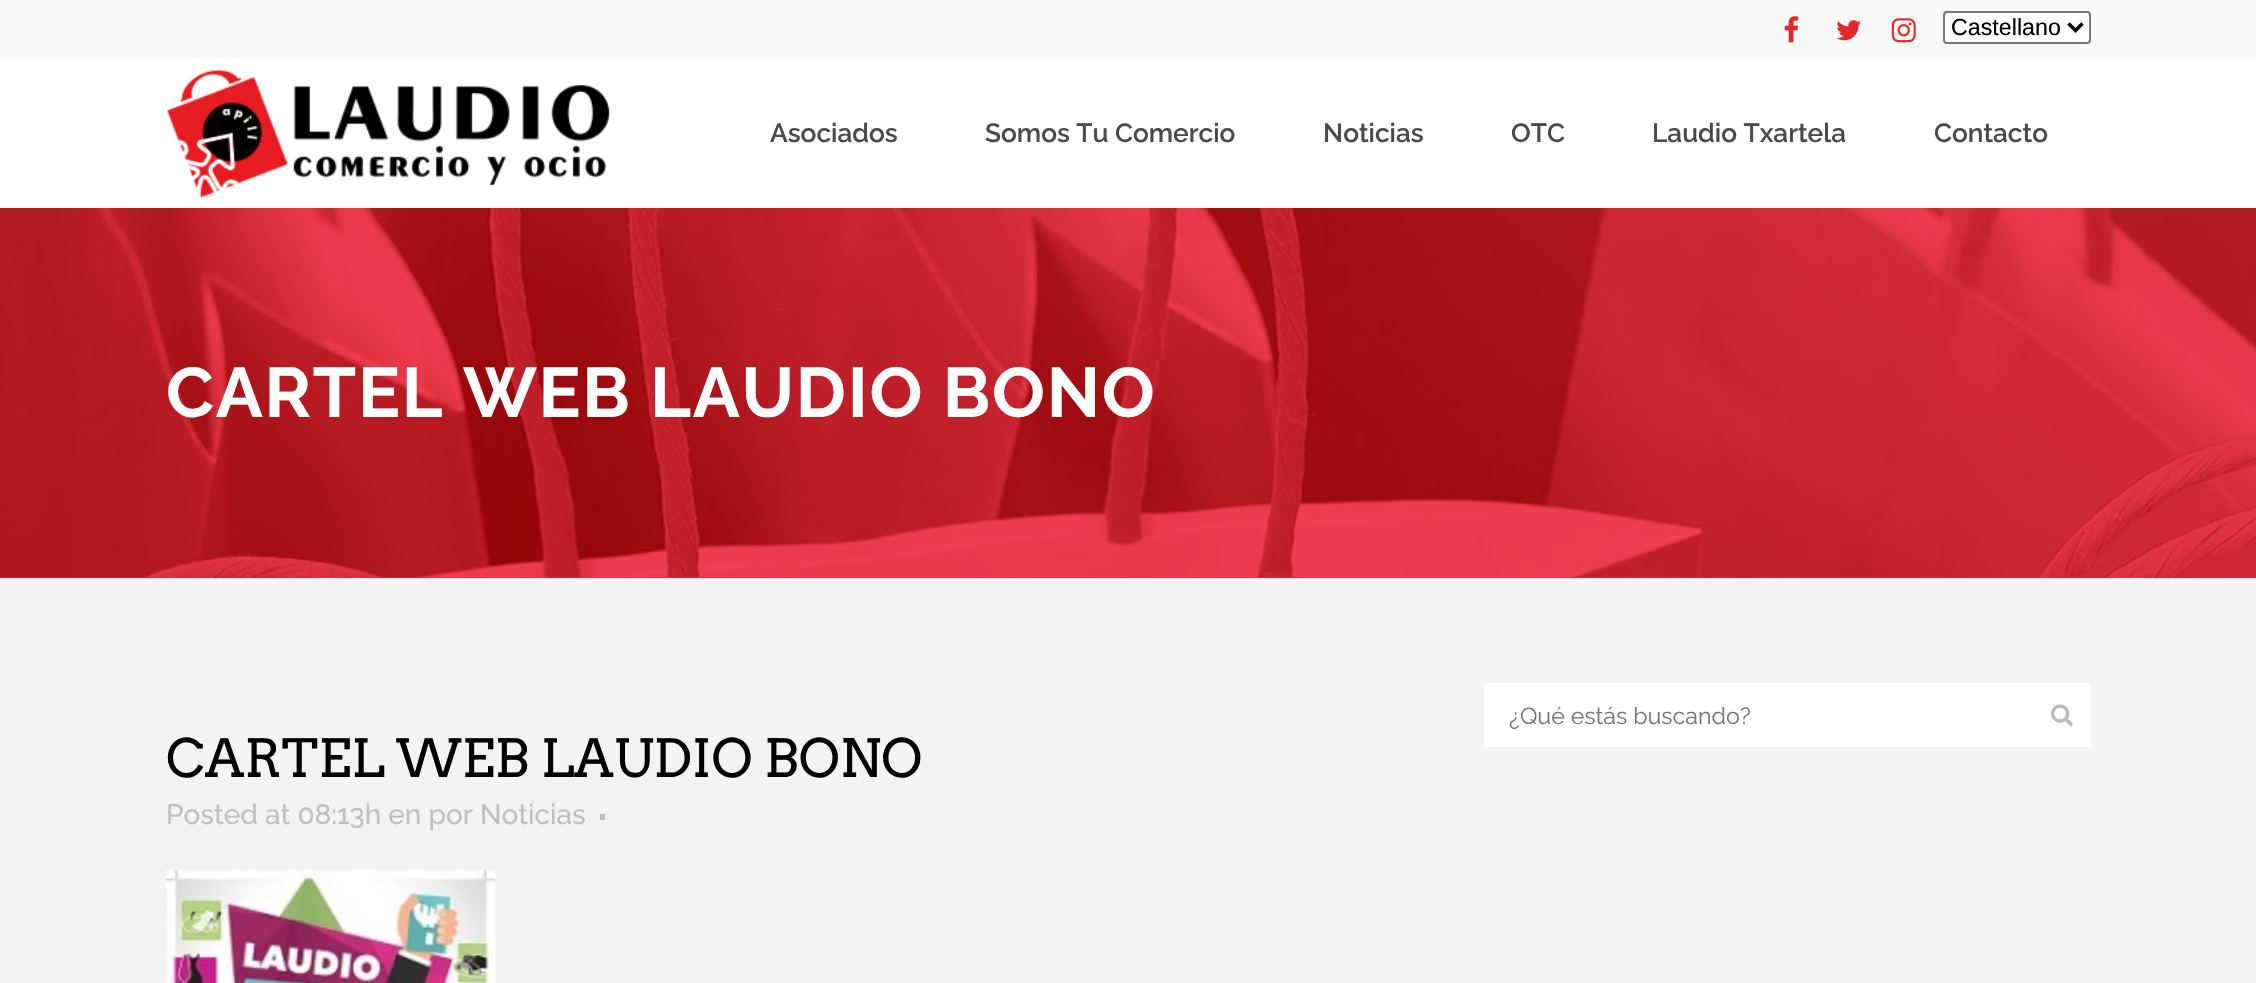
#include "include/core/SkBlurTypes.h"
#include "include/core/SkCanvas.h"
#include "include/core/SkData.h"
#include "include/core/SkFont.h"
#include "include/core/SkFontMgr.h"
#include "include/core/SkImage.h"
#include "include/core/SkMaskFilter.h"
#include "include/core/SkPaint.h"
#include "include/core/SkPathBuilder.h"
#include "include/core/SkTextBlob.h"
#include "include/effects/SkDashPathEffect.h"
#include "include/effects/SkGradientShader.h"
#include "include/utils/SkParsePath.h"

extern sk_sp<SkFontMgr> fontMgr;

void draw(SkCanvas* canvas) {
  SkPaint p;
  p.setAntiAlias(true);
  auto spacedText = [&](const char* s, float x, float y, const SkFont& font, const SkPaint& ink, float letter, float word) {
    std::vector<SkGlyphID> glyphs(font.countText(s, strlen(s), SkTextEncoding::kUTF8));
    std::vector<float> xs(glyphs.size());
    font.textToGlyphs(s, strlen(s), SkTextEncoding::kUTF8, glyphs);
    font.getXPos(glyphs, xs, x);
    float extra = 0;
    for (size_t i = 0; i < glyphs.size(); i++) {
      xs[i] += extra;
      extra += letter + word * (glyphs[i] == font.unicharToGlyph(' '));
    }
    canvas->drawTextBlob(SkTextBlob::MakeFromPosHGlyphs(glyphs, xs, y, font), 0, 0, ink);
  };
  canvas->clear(SkColorSetRGB(243, 243, 243));
  p.setColor(SkColorSetRGB(248, 248, 248));
  canvas->drawRect(SkRect::MakeLTRB(0, 0, 2256, 58), p);
  canvas->drawImageRect(SkImages::DeferredFromEncodedData(SkData::MakeFromFileName("images/1.png")), SkRect::MakeLTRB(1784, 16, 1799, 43), SkSamplingOptions());
  canvas->drawImageRect(SkImages::DeferredFromEncodedData(SkData::MakeFromFileName("images/2.png")), SkRect::MakeLTRB(1836, 20, 1861, 41), SkSamplingOptions());
  canvas->drawImageRect(SkImages::DeferredFromEncodedData(SkData::MakeFromFileName("images/3.png")), SkRect::MakeLTRB(1891, 18, 1916, 43), SkSamplingOptions());
  p.setColor(SK_ColorWHITE);
  canvas->drawRoundRect(SkRect::MakeLTRB(1944, 12, 2090, 43), 3, 3, p);
  p.setStyle(SkPaint::kStroke_Style);
  p.setStrokeWidth(2);
  p.setColor(SkColorSetRGB(118, 118, 118));
  canvas->drawRoundRect(SkRect::MakeLTRB(1944, 12, 2090, 43), 3, 3, p);
  p.setStrokeWidth(3.5f);
  p.setColor(SK_ColorBLACK);
  canvas->drawPath(SkPathBuilder().moveTo(2068.5f, 23.5f).lineTo(2075.5f, 30.5f).lineTo(2082.5f, 23.5f).detach(), p);
  p.setStyle(SkPaint::kFill_Style);
  p.setColor(SK_ColorWHITE);
  canvas->drawRect(SkRect::MakeLTRB(0, 58, 2256, 208), p);
  canvas->drawImageRect(SkImages::DeferredFromEncodedData(SkData::MakeFromFileName("images/4.png")), SkRect::MakeLTRB(167, 70, 610, 198), SkSamplingOptions());
  p.setColor(SkColorSetRGB(221, 51, 51));
  canvas->drawRect(SkRect::MakeLTRB(0, 577, 2256, 578), p);
  canvas->drawImageRect(SkImages::DeferredFromEncodedData(SkData::MakeFromFileName("images/5.png")), SkRect::MakeLTRB(0, 208, 2256, 578), SkSamplingOptions());
  p.setColor(SK_ColorWHITE);
  canvas->drawRect(SkRect::MakeLTRB(1484, 683, 2091, 747), p);
  canvas->drawImageRect(SkImages::DeferredFromEncodedData(SkData::MakeFromFileName("images/6.png")), SkRect::MakeLTRB(2051, 704, 2073, 726), SkSamplingOptions());
  p.setColor(SkColorSetRGB(190, 190, 190));
  canvas->drawRect(SkRect::MakeLTRB(600, 814, 605, 820), p);
  canvas->drawImageRect(SkImages::DeferredFromEncodedData(SkData::MakeFromFileName("images/7.png")), SkRect::MakeLTRB(166, 869, 496, 983), SkSamplingOptions());
  SkFont font1(fontMgr->matchFamilyStyle("Liberation Sans", SkFontStyle::Normal()), 23.25f);
  font1.setSubpixel(true);
  p.setColor(SK_ColorBLACK);
  canvas->drawString("Castellano", 1951, 35, font1, p);
  SkFont font2(fontMgr->matchFamilyStyle("Raleway", SkFontStyle(600, SkFontStyle::kNormal_Width, SkFontStyle::kUpright_Slant)), 26.25f);
  font2.setSubpixel(true);
  p.setColor(SkColorSetRGB(73, 73, 73));
  canvas->drawString("Asociados", 770, 142, font2, p);
  canvas->drawString("Somos Tu Comercio", 985, 142, font2, p);
  canvas->drawString("Noticias", 1323, 142, font2, p);
  canvas->drawString("OTC", 1511, 142, font2, p);
  canvas->drawString("Laudio Txartela", 1652, 142, font2, p);
  canvas->drawString("Contacto", 1934, 142, font2, p);
  SkFont font3(fontMgr->matchFamilyStyle("Raleway", SkFontStyle::Bold()), 70);
  font3.setSubpixel(true);
  p.setColor(SK_ColorWHITE);
  spacedText("CARTEL WEB LAUDIO BONO", 166, 417, font3, p, 1.75f, 0);
  SkFont font4(fontMgr->matchFamilyStyle("Raleway", SkFontStyle::Normal()), 23.25f);
  font4.setSubpixel(true);
  p.setColor(SkColorSetRGB(117, 117, 117));
  canvas->drawString("¿Qué estás buscando?", 1509, 724, font4, p);
  SkFont font5(fontMgr->matchFamilyStyle("Arvo", SkFontStyle::Normal()), 52.5f);
  font5.setSubpixel(true);
  p.setColor(SK_ColorBLACK);
  canvas->drawString("CARTEL WEB LAUDIO BONO", 166, 777, font5, p);
  SkFont font6(fontMgr->matchFamilyStyle("Raleway", SkFontStyle(500, SkFontStyle::kNormal_Width, SkFontStyle::kUpright_Slant)), 28);
  font6.setSubpixel(true);
  p.setColor(SkColorSetRGB(190, 190, 190));
  canvas->drawString("Posted at 08:13h en por Noticias", 166, 824, font6, p);
}
